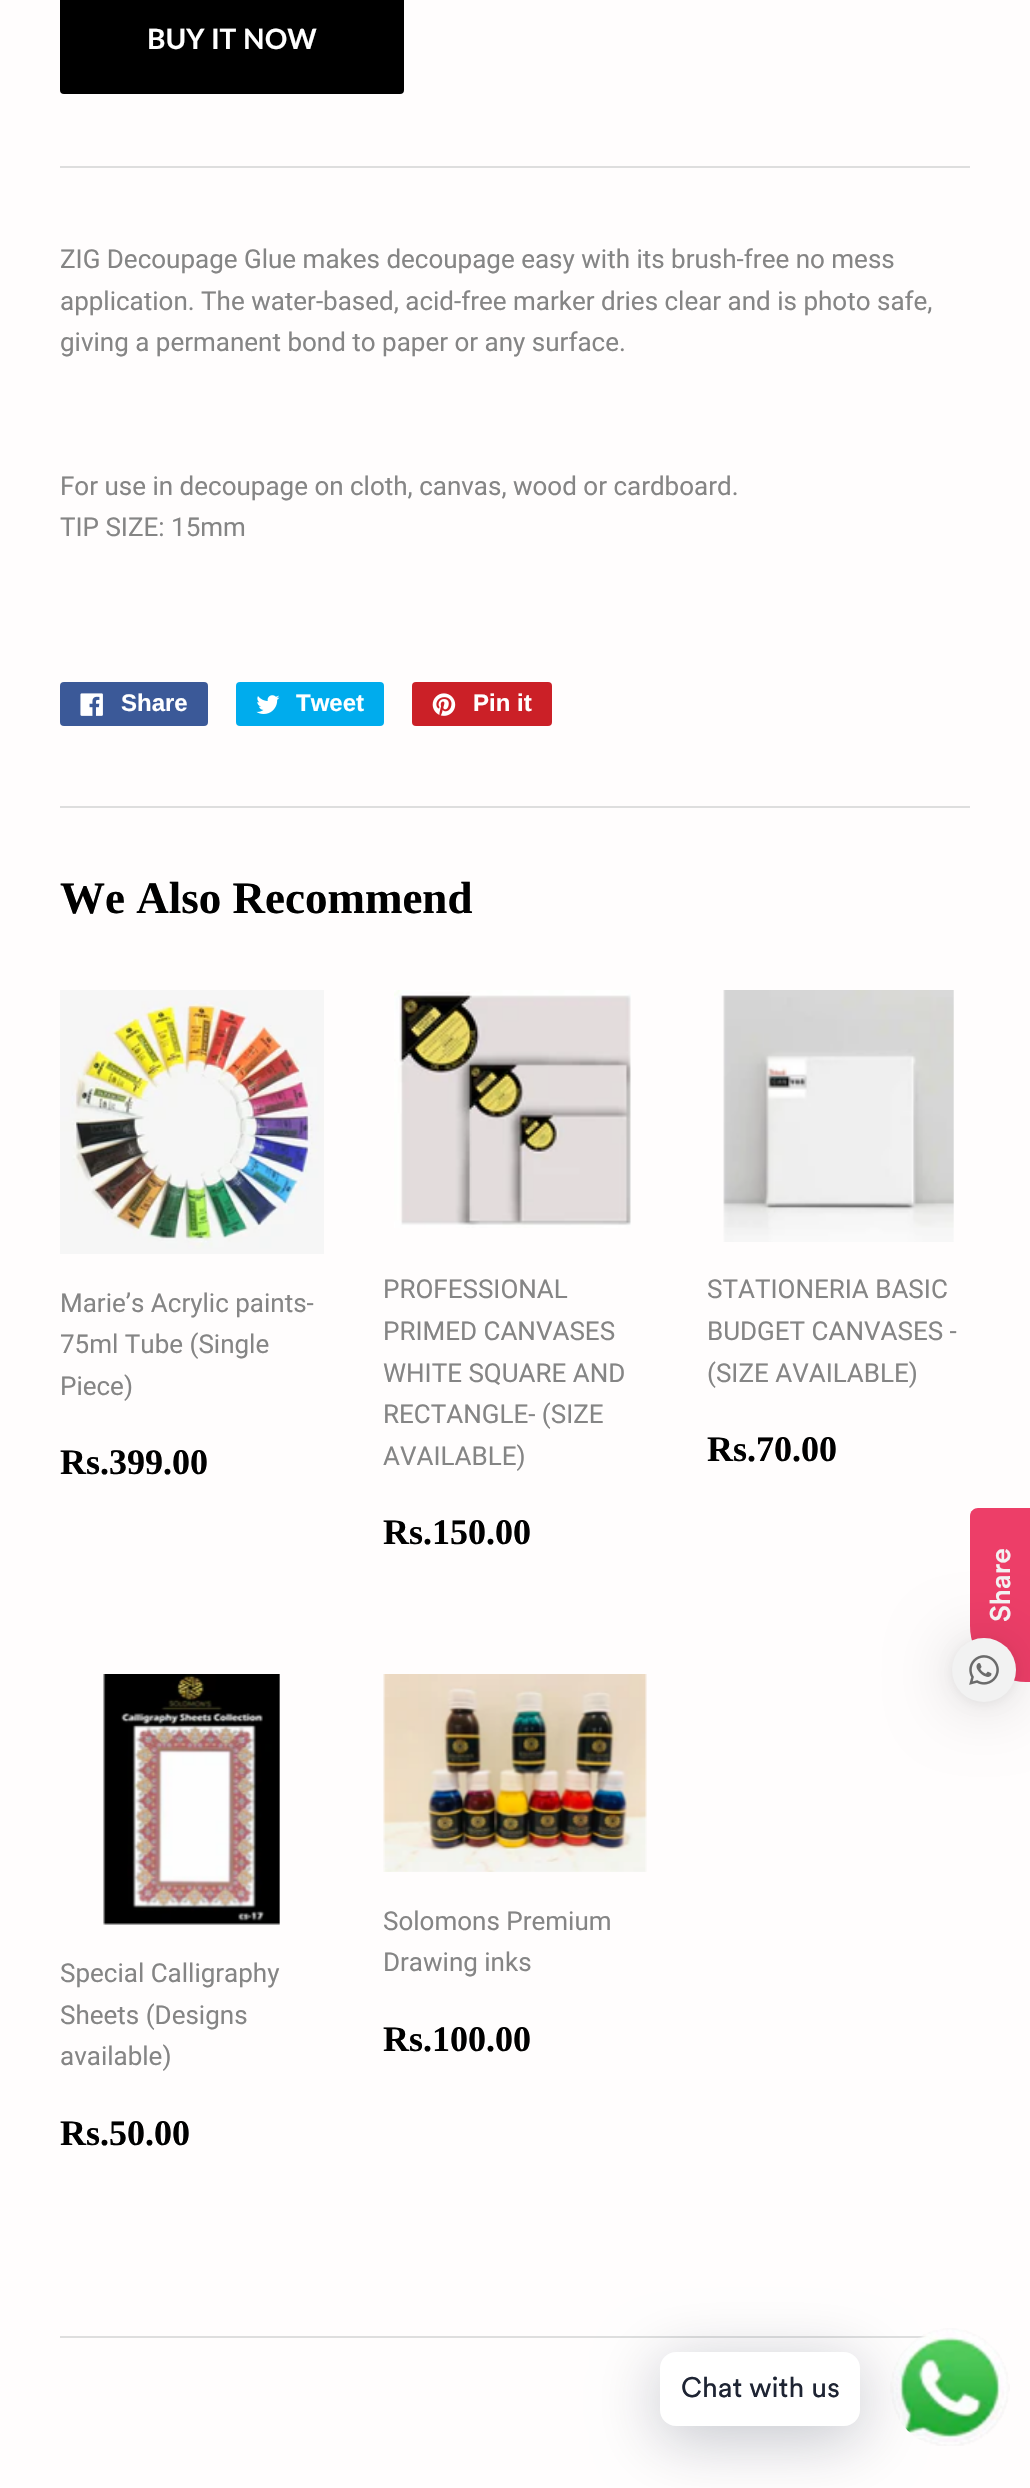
#include "include/core/SkBlurTypes.h"
#include "include/core/SkCanvas.h"
#include "include/core/SkData.h"
#include "include/core/SkFont.h"
#include "include/core/SkFontMgr.h"
#include "include/core/SkImage.h"
#include "include/core/SkMaskFilter.h"
#include "include/core/SkPaint.h"
#include "include/core/SkPathBuilder.h"
#include "include/core/SkTextBlob.h"
#include "include/effects/SkDashPathEffect.h"
#include "include/effects/SkGradientShader.h"
#include "include/utils/SkParsePath.h"

extern sk_sp<SkFontMgr> fontMgr;

void draw(SkCanvas* canvas) {
  SkPaint p;
  p.setAntiAlias(true);
  canvas->clear(SkColorSetRGB(255, 253, 253));
  p.setColor(SK_ColorBLACK);
  canvas->drawRoundRect(SkRect::MakeLTRB(60, -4, 404, 94), 4, 4, p);
  p.setColor(SkColorSetRGB(222, 222, 222));
  canvas->drawRect(SkRect::MakeLTRB(60, 166, 970, 168), p);
  p.setColor(SkColorSetRGB(59, 89, 152));
  canvas->drawRoundRect(SkRect::MakeLTRB(60, 682, 208, 726), 4, 4, p);
  canvas->drawImageRect(SkImages::DeferredFromEncodedData(SkData::MakeFromFileName("images/1.png")), SkRect::MakeLTRB(80, 693, 103, 716), SkSamplingOptions());
  p.setColor(SkColorSetRGB(0, 172, 237));
  canvas->drawRoundRect(SkRect::MakeLTRB(236, 682, 384, 726), 4, 4, p);
  canvas->drawImageRect(SkImages::DeferredFromEncodedData(SkData::MakeFromFileName("images/2.png")), SkRect::MakeLTRB(256, 695, 280, 714), SkSamplingOptions());
  p.setColor(SkColorSetRGB(203, 32, 39));
  canvas->drawRoundRect(SkRect::MakeLTRB(412, 682, 552, 726), 4, 4, p);
  canvas->drawImageRect(SkImages::DeferredFromEncodedData(SkData::MakeFromFileName("images/3.png")), SkRect::MakeLTRB(432, 693, 456, 716), SkSamplingOptions());
  p.setColor(SkColorSetRGB(222, 222, 222));
  canvas->drawRect(SkRect::MakeLTRB(60, 806, 970, 808), p);
  canvas->drawImageRect(SkImages::DeferredFromEncodedData(SkData::MakeFromFileName("images/4.png")), SkRect::MakeLTRB(60, 990, 324, 1254), SkSamplingOptions());
  canvas->drawImageRect(SkImages::DeferredFromEncodedData(SkData::MakeFromFileName("images/5.png")), SkRect::MakeLTRB(394, 990, 631, 1228), SkSamplingOptions());
  canvas->drawImageRect(SkImages::DeferredFromEncodedData(SkData::MakeFromFileName("images/6.png")), SkRect::MakeLTRB(723, 990, 954, 1242), SkSamplingOptions());
  canvas->drawImageRect(SkImages::DeferredFromEncodedData(SkData::MakeFromFileName("images/7.png")), SkRect::MakeLTRB(103, 1674, 280, 1925), SkSamplingOptions());
  canvas->drawImageRect(SkImages::DeferredFromEncodedData(SkData::MakeFromFileName("images/8.png")), SkRect::MakeLTRB(383, 1674, 647, 1872), SkSamplingOptions());
  canvas->drawRect(SkRect::MakeLTRB(60, 2336, 970, 2338), p);
  p.setColor(SkColorSetRGB(237, 62, 104));
  canvas->drawPath(SkPathBuilder().moveTo(1030, 1508).lineTo(1030, 1682).lineTo(1026, 1682).cubicTo(995, 1682, 970, 1657, 970, 1626).lineTo(970, 1516).cubicTo(970, 1511, 974, 1508, 978, 1508).close().detach(), p);
  p.setColor(SkColorSetARGB(41, 0, 0, 0));
  p.setMaskFilter(SkMaskFilter::MakeBlur(kNormal_SkBlurStyle, 32));
  canvas->drawRoundRect(SkRect::MakeLTRB(952, 1642, 1016, 1706), 32, 32, p);
  p.setMaskFilter(nullptr);
  p.setColor(SkColorSetARGB(15, 0, 0, 0));
  p.setMaskFilter(SkMaskFilter::MakeBlur(kNormal_SkBlurStyle, 6));
  canvas->drawRoundRect(SkRect::MakeLTRB(952, 1640, 1016, 1704), 32, 32, p);
  p.setMaskFilter(nullptr);
  p.setColor(SkColorSetRGB(242, 242, 242));
  canvas->drawCircle(984, 1670, 32, p);
  canvas->drawImageRect(SkImages::DeferredFromEncodedData(SkData::MakeFromFileName("images/9.png")), SkRect::MakeLTRB(969, 1655, 999, 1685), SkSamplingOptions());
  canvas->drawImageRect(SkImages::DeferredFromEncodedData(SkData::MakeFromFileName("images/10.png")), SkRect::MakeLTRB(890, 2328, 1010, 2446), SkSamplingOptions());
  p.setColor(SkColorSetARGB(61, 0, 18, 46));
  p.setMaskFilter(SkMaskFilter::MakeBlur(kNormal_SkBlurStyle, 32));
  canvas->drawRoundRect(SkRect::MakeLTRB(660, 2364, 860, 2438), 16, 16, p);
  p.setMaskFilter(nullptr);
  p.setColor(SK_ColorWHITE);
  canvas->drawRoundRect(SkRect::MakeLTRB(660, 2352, 860, 2426), 16, 16, p);
  SkFont font1(fontMgr->matchFamilyStyle("Lato", SkFontStyle::Bold()), 28);
  font1.setSubpixel(true);
  canvas->drawString("BUY IT NOW", 147, 49, font1, p);
  SkFont font2(fontMgr->matchFamilyStyle("Roboto", SkFontStyle::Normal()), 26);
  font2.setSubpixel(true);
  p.setColor(SkColorSetRGB(133, 133, 133));
  canvas->drawString("ZIG Decoupage Glue makes decoupage easy with its brush-free no mess", 60, 268, font2, p);
  canvas->drawString("application. The water-based, acid-free marker dries clear and is photo safe,", 60, 310, font2, p);
  canvas->drawString("giving a permanent bond to paper or any surface.", 60, 351, font2, p);
  canvas->drawString("For use in decoupage on cloth, canvas, wood or cardboard.", 60, 495, font2, p);
  canvas->drawString("TIP SIZE: 15mm", 60, 536, font2, p);
  SkFont font3(fontMgr->matchFamilyStyle("Liberation Sans", SkFontStyle::Bold()), 24);
  font3.setSubpixel(true);
  p.setColor(SK_ColorWHITE);
  canvas->drawString("Share", 121, 711, font3, p);
  canvas->drawString("Tweet", 296, 711, font3, p);
  canvas->drawString("Pin it", 473, 711, font3, p);
  SkFont font4(fontMgr->matchFamilyStyle("Liberation Serif", SkFontStyle::Bold()), 45);
  font4.setSubpixel(true);
  p.setColor(SK_ColorBLACK);
  canvas->drawString("We Also Recommend", 60, 913, font4, p);
  p.setColor(SkColorSetRGB(133, 133, 133));
  canvas->drawString("Marie’s Acrylic paints-", 60, 1312, font2, p);
  canvas->drawString("75ml Tube (Single", 60, 1353, font2, p);
  canvas->drawString("Piece)", 60, 1395, font2, p);
  SkFont font5(fontMgr->matchFamilyStyle("Liberation Serif", SkFontStyle::Bold()), 36);
  font5.setSubpixel(true);
  p.setColor(SK_ColorBLACK);
  canvas->drawString("Rs.399.00", 60, 1474, font5, p);
  p.setColor(SkColorSetRGB(133, 133, 133));
  canvas->drawString("PROFESSIONAL", 383, 1298, font2, p);
  canvas->drawString("PRIMED CANVASES", 383, 1340, font2, p);
  canvas->drawString("WHITE SQUARE AND", 383, 1382, font2, p);
  canvas->drawString("RECTANGLE- (SIZE", 383, 1423, font2, p);
  canvas->drawString("AVAILABLE)", 383, 1465, font2, p);
  p.setColor(SK_ColorBLACK);
  canvas->drawString("Rs.150.00", 383, 1544, font5, p);
  p.setColor(SkColorSetRGB(133, 133, 133));
  canvas->drawString("STATIONERIA BASIC", 707, 1298, font2, p);
  canvas->drawString("BUDGET CANVASES -", 707, 1340, font2, p);
  canvas->drawString("(SIZE AVAILABLE)", 707, 1382, font2, p);
  p.setColor(SK_ColorBLACK);
  canvas->drawString("Rs.70.00", 707, 1461, font5, p);
  p.setColor(SkColorSetRGB(133, 133, 133));
  canvas->drawString("Special Calligraphy", 60, 1982, font2, p);
  canvas->drawString("Sheets (Designs", 60, 2024, font2, p);
  canvas->drawString("available)", 60, 2065, font2, p);
  p.setColor(SK_ColorBLACK);
  canvas->drawString("Rs.50.00", 60, 2145, font5, p);
  p.setColor(SkColorSetRGB(133, 133, 133));
  canvas->drawString("Solomons Premium", 383, 1930, font2, p);
  canvas->drawString("Drawing inks", 383, 1971, font2, p);
  p.setColor(SK_ColorBLACK);
  canvas->drawString("Rs.100.00", 383, 2051, font5, p);
  SkFont font6(fontMgr->matchFamilyStyle("Circular", SkFontStyle(500, SkFontStyle::kNormal_Width, SkFontStyle::kUpright_Slant)), 28);
  font6.setSubpixel(true);
  p.setColor(SkColorSetRGB(242, 242, 242));
  canvas->save();
  canvas->rotate(-90, 1010, 1622);
  canvas->drawString("Share", 1010, 1622, font6, p);
  canvas->restore();
  SkFont font7(fontMgr->matchFamilyStyle("Circular", SkFontStyle::Normal()), 28);
  font7.setSubpixel(true);
  p.setColor(SkColorSetRGB(30, 36, 51));
  canvas->drawString("Chat with us", 681, 2397, font7, p);
}
